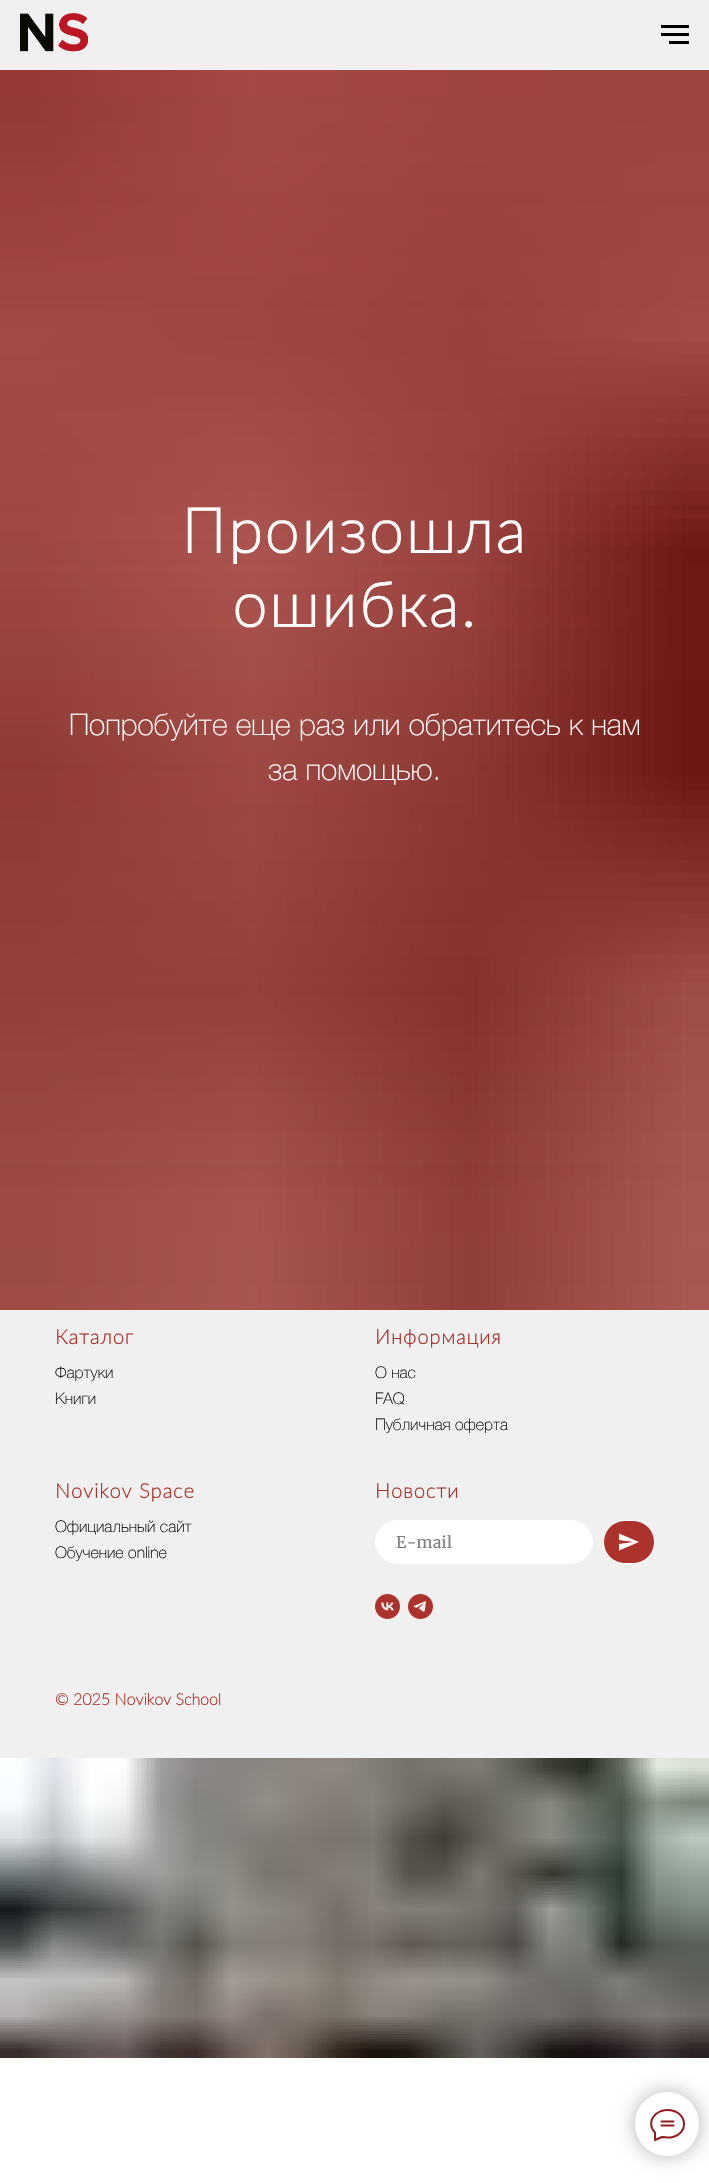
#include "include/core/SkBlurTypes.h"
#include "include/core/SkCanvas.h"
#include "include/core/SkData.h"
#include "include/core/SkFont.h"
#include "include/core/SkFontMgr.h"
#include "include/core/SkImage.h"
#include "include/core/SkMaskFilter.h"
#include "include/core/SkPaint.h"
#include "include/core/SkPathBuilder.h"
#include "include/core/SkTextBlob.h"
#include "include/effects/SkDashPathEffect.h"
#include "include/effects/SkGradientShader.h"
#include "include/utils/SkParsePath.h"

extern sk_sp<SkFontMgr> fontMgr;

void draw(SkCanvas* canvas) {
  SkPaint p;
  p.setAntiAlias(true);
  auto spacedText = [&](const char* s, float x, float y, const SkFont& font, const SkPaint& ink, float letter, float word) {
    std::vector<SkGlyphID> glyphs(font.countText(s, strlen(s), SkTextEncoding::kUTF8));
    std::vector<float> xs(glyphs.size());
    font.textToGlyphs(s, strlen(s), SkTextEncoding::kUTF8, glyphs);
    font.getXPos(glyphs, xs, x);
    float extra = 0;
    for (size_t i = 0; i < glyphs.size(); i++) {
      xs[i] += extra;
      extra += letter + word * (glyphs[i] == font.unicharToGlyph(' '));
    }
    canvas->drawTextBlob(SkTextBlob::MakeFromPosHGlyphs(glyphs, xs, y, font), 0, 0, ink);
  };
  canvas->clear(SK_ColorWHITE);
  p.setColor(SkColorSetRGB(240, 240, 240));
  canvas->drawRect(SkRect::MakeLTRB(0, 0, 709, 70), p);
  canvas->drawImageRect(SkImages::DeferredFromEncodedData(SkData::MakeFromFileName("images/1.png")), SkRect::MakeLTRB(20, 13, 88, 52), SkSamplingOptions());
  p.setColor(SK_ColorBLACK);
  canvas->drawRect(SkRect::MakeLTRB(661, 25, 689, 28), p);
  canvas->drawRect(SkRect::MakeLTRB(661, 33, 689, 36), p);
  canvas->drawRect(SkRect::MakeLTRB(669, 41, 689, 44), p);
  p.setColor(SkColorSetARGB(77, 0, 0, 0));
  p.setMaskFilter(SkMaskFilter::MakeBlur(kNormal_SkBlurStyle, 10));
  canvas->drawRoundRect(SkRect::MakeLTRB(635, 2092, 699, 2156), 32, 32, p);
  p.setMaskFilter(nullptr);
  p.setColor(SK_ColorWHITE);
  canvas->drawCircle(667, 2124, 31, p);
  p.setStyle(SkPaint::kStroke_Style);
  p.setStrokeWidth(2);
  canvas->drawCircle(667, 2124, 31, p);
  p.setStrokeCap(SkPaint::kRound_Cap);
  p.setStrokeJoin(SkPaint::kRound_Join);
  p.setColor(SkColorSetRGB(148, 27, 27));
  canvas->drawPath(SkPathBuilder().moveTo(661.5f, 2121.5f).lineTo(673.5f, 2121.5f).moveTo(661.5f, 2125.5f).lineTo(673.5f, 2125.5f).moveTo(655, 2132.5f).cubicTo(649.5f, 2127, 650, 2119, 656, 2114).cubicTo(659, 2111.5f, 663.5f, 2110, 667.5f, 2110).cubicTo(687, 2110, 690.5f, 2134, 671, 2137.5f).cubicTo(667, 2138, 665.5f, 2137, 662, 2137).lineTo(655, 2140).lineTo(655, 2133).close().detach(), p);
  canvas->drawImageRect(SkImages::DeferredFromEncodedData(SkData::MakeFromFileName("images/2.png")), SkRect::MakeLTRB(0, 70, 709, 1310), SkSamplingOptions());
  p.setStyle(SkPaint::kFill_Style);
  p.setColor(SkColorSetRGB(240, 240, 240));
  canvas->drawRect(SkRect::MakeLTRB(0, 1310, 709, 1758), p);
  p.setColor(SK_ColorWHITE);
  canvas->drawRoundRect(SkRect::MakeLTRB(375.5f, 1520.5f, 592.5f, 1563.5f), 21.5f, 21.5f, p);
  p.setStyle(SkPaint::kStroke_Style);
  p.setStrokeWidth(1);
  p.setStrokeCap(SkPaint::kButt_Cap);
  p.setStrokeJoin(SkPaint::kMiter_Join);
  canvas->drawRoundRect(SkRect::MakeLTRB(375.5f, 1520.5f, 592.5f, 1563.5f), 21.5f, 21.5f, p);
  p.setStyle(SkPaint::kFill_Style);
  p.setColor(SkColorSetRGB(171, 51, 43));
  canvas->drawRoundRect(SkRect::MakeLTRB(603.5f, 1520.5f, 654.5f, 1563.5f), 21.5f, 21.5f, p);
  p.setStyle(SkPaint::kStroke_Style);
  p.setColor(SK_ColorWHITE);
  canvas->drawRoundRect(SkRect::MakeLTRB(603.5f, 1520.5f, 654.5f, 1563.5f), 21.5f, 21.5f, p);
  p.setStyle(SkPaint::kFill_Style);
  canvas->drawPath(SkPathBuilder().moveTo(619, 1550.5f).lineTo(639, 1542).lineTo(619, 1533.5f).lineTo(619, 1540).lineTo(633.5f, 1542).lineTo(619, 1544).close().detach(), p);
  canvas->drawImageRect(SkImages::DeferredFromEncodedData(SkData::MakeFromFileName("images/3.png")), SkRect::MakeLTRB(375, 1594, 400, 1619), SkSamplingOptions());
  canvas->drawImageRect(SkImages::DeferredFromEncodedData(SkData::MakeFromFileName("images/4.png")), SkRect::MakeLTRB(408, 1594, 433, 1619), SkSamplingOptions());
  canvas->drawImageRect(SkImages::DeferredFromEncodedData(SkData::MakeFromFileName("images/5.png")), SkRect::MakeLTRB(0, 1758, 709, 2058), SkSamplingOptions());
  SkFont font1(fontMgr->matchFamilyStyle("Lato", SkFontStyle::Bold()), 62);
  font1.setSubpixel(true);
  spacedText("Произошла", 181, 553, font1, p, 2.5f, 0);
  spacedText("ошибка.", 232, 627, font1, p, 2.5f, 0);
  SkFont font2(fontMgr->matchFamilyStyle("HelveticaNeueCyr", SkFontStyle(100, SkFontStyle::kNormal_Width, SkFontStyle::kUpright_Slant)), 30);
  font2.setSubpixel(true);
  canvas->drawString("Попробуйте еще раз или обратитесь к нам", 69, 735, font2, p);
  canvas->drawString("за помощью.", 268, 780, font2, p);
  SkFont font3(fontMgr->matchFamilyStyle("Lato", SkFontStyle::Bold()), 20);
  font3.setSubpixel(true);
  p.setColor(SkColorSetRGB(171, 51, 43));
  spacedText("Каталог", 55, 1344, font3, p, 1, 0);
  SkFont font4(fontMgr->matchFamilyStyle("HelveticaNeueCyr", SkFontStyle(100, SkFontStyle::kNormal_Width, SkFontStyle::kUpright_Slant)), 16);
  font4.setSubpixel(true);
  p.setColor(SK_ColorBLACK);
  canvas->drawString("Фартуки", 55, 1378, font4, p);
  canvas->drawString("Книги", 55, 1404, font4, p);
  p.setColor(SkColorSetRGB(171, 51, 43));
  spacedText("Информация", 375, 1344, font3, p, 1, 0);
  p.setColor(SK_ColorBLACK);
  canvas->drawString("О нас", 375, 1378, font4, p);
  canvas->drawString("FAQ", 375, 1404, font4, p);
  canvas->drawString("Публичная оферта", 375, 1430, font4, p);
  p.setColor(SkColorSetRGB(171, 51, 43));
  spacedText("Novikov Space", 55, 1498, font3, p, 1, 0);
  p.setColor(SK_ColorBLACK);
  canvas->drawString("Официальный сайт", 55, 1532, font4, p);
  canvas->drawString("Обучение online", 55, 1558, font4, p);
  p.setColor(SkColorSetRGB(171, 51, 43));
  spacedText("Новости", 375, 1498, font3, p, 1, 0);
  SkFont font5(fontMgr->matchFamilyStyle("Merriweather", SkFontStyle::Normal()), 16);
  font5.setSubpixel(true);
  p.setColor(SkColorSetRGB(128, 128, 128));
  canvas->drawString("E-mail", 396, 1548, font5, p);
  SkFont font6(fontMgr->matchFamilyStyle("Lato", SkFontStyle::Bold()), 16);
  font6.setSubpixel(true);
  p.setColor(SkColorSetRGB(171, 51, 43));
  canvas->drawString("© 2025 Novikov School", 55, 1705, font6, p);
}
